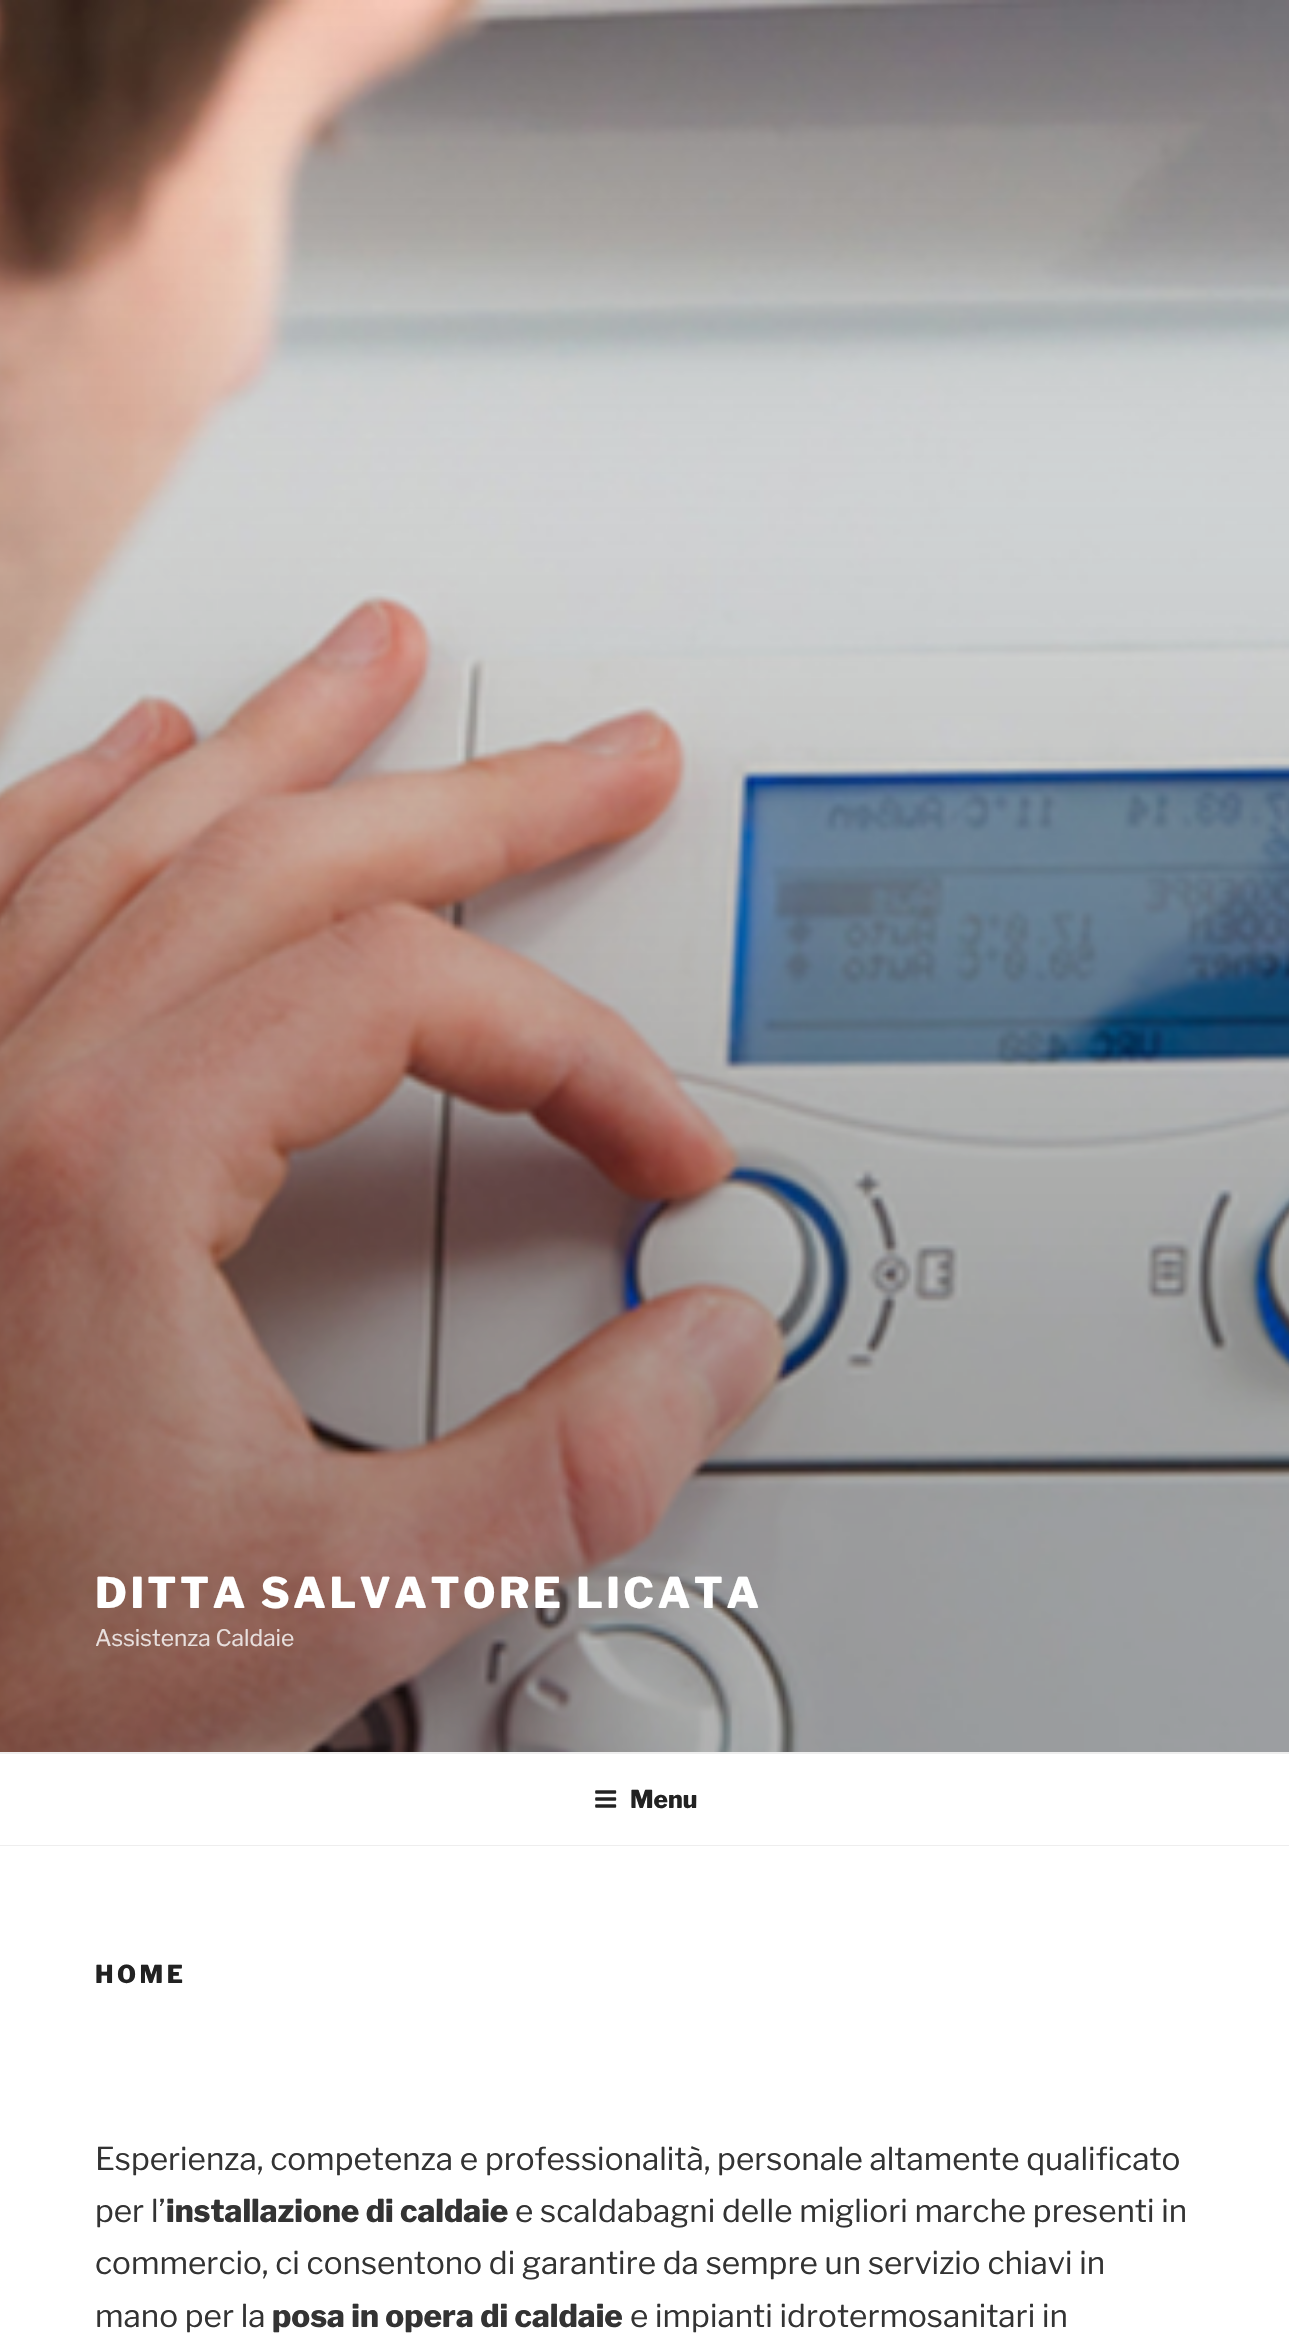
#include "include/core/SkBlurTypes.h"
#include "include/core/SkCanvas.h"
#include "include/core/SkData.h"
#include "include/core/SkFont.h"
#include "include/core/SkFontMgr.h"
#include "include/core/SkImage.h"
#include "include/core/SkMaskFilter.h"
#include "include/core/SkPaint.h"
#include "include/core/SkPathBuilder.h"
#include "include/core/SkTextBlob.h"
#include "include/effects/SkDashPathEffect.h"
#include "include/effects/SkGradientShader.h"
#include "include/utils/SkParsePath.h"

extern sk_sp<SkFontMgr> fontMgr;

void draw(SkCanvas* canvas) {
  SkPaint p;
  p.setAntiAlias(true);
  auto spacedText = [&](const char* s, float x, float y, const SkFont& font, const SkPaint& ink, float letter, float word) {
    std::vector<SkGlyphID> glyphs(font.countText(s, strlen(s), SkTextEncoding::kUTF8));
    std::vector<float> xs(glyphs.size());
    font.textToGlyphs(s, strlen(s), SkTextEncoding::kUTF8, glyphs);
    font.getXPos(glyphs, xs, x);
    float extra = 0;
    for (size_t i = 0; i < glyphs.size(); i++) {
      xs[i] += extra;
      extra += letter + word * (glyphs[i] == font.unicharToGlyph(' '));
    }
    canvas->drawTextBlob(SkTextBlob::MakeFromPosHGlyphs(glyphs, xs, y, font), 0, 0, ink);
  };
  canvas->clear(SK_ColorWHITE);
  canvas->drawImageRect(SkImages::DeferredFromEncodedData(SkData::MakeFromFileName("images/1.png")), SkRect::MakeLTRB(0, 0, 1289, 1752), SkSamplingOptions());
  p.setColor(SkColorSetRGB(238, 238, 238));
  canvas->drawRect(SkRect::MakeLTRB(0, 1752, 1289, 1754), p);
  canvas->drawRect(SkRect::MakeLTRB(0, 1845, 1289, 1846), p);
  canvas->drawImageRect(SkImages::DeferredFromEncodedData(SkData::MakeFromFileName("images/2.png")), SkRect::MakeLTRB(595, 1790, 617, 1808), SkSamplingOptions());
  SkFont font1(fontMgr->matchFamilyStyle("Libre Franklin", SkFontStyle(100, SkFontStyle::kNormal_Width, SkFontStyle::kUpright_Slant)), 42);
  font1.setSubpixel(true);
  p.setColor(SK_ColorWHITE);
  spacedText("DITTA SALVATORE LICATA", 95, 1608, font1, p, 3.4f, 0);
  SkFont font2(fontMgr->matchFamilyStyle("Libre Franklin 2", SkFontStyle(100, SkFontStyle::kNormal_Width, SkFontStyle::kUpright_Slant)), 22.75f);
  font2.setSubpixel(true);
  p.setColor(SkColorSetRGB(232, 223, 221));
  canvas->drawString("Assistenza Caldaie", 95, 1646, font2, p);
  SkFont font3(fontMgr->matchFamilyStyle("Libre Franklin", SkFontStyle(100, SkFontStyle::kNormal_Width, SkFontStyle::kUpright_Slant)), 24.5f);
  font3.setSubpixel(true);
  p.setColor(SkColorSetRGB(34, 34, 34));
  canvas->drawString("Menu", 630, 1808, font3, p);
  spacedText("HOME", 95, 1983, font3, p, 3.5f, 0);
  SkFont font4(fontMgr->matchFamilyStyle("Libre Franklin 2", SkFontStyle(100, SkFontStyle::kNormal_Width, SkFontStyle::kUpright_Slant)), 31.5f);
  font4.setSubpixel(true);
  p.setColor(SkColorSetRGB(51, 51, 51));
  canvas->drawString("Esperienza, competenza e professionalità, personale altamente qualificato", 95, 2170, font4, p);
  canvas->drawString("per l’", 95, 2222, font4, p);
  SkFont font5(fontMgr->matchFamilyStyle("Libre Franklin", SkFontStyle(100, SkFontStyle::kNormal_Width, SkFontStyle::kUpright_Slant)), 31.5f);
  font5.setSubpixel(true);
  canvas->drawString("installazione di caldaie", 166, 2222, font5, p);
  canvas->drawString("e scaldabagni delle migliori marche presenti in", 515, 2222, font4, p);
  canvas->drawString("commercio, ci consentono di garantire da sempre un servizio chiavi in", 95, 2274, font4, p);
  canvas->drawString("mano per la", 95, 2327, font4, p);
  canvas->drawString("posa in opera di caldaie", 272, 2327, font5, p);
  canvas->drawString("e impianti idrotermosanitari in", 630, 2327, font4, p);
}
